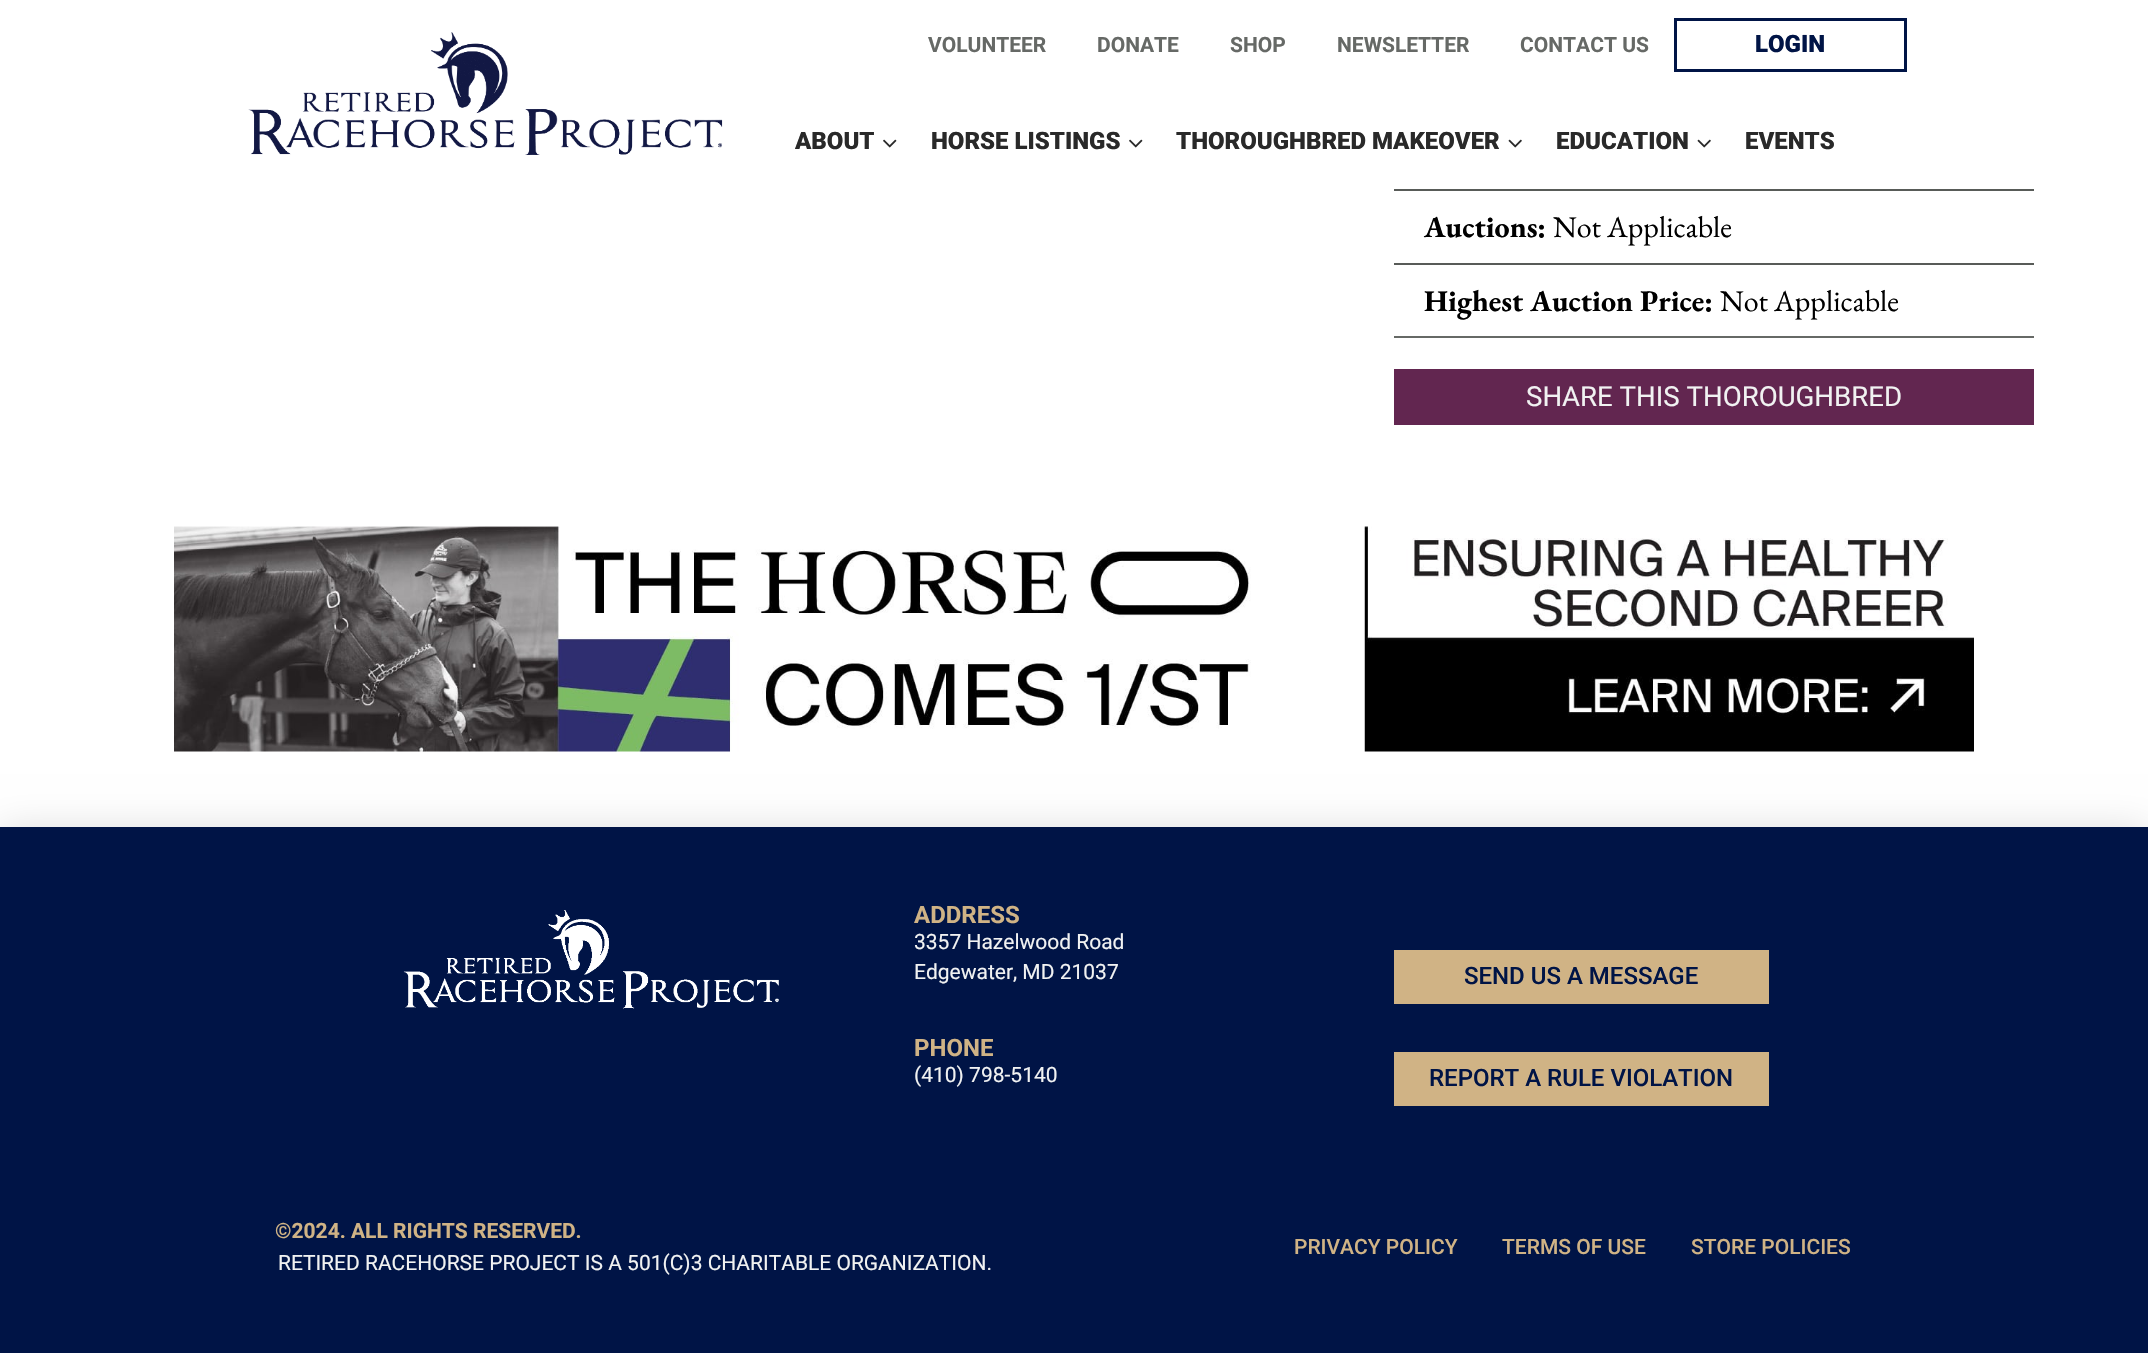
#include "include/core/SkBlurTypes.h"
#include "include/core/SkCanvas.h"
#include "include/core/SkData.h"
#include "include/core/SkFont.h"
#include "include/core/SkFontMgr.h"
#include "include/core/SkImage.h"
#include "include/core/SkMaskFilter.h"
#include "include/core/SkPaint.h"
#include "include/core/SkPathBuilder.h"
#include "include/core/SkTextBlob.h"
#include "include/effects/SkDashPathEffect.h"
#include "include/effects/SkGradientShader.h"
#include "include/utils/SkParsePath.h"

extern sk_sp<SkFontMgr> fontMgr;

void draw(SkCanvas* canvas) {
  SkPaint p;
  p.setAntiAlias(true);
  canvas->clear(SK_ColorWHITE);
  canvas->drawImageRect(SkImages::DeferredFromEncodedData(SkData::MakeFromFileName("images/1.png")), SkRect::MakeLTRB(248, 32, 723, 155), SkSamplingOptions());
  p.setStyle(SkPaint::kStroke_Style);
  p.setStrokeWidth(3);
  p.setColor(SkColorSetRGB(0, 20, 70));
  canvas->drawRect(SkRect::MakeLTRB(1675.5f, 19.5f, 1905.5f, 70.5f), p);
  canvas->drawImageRect(SkImages::DeferredFromEncodedData(SkData::MakeFromFileName("images/2.png")), SkRect::MakeLTRB(883, 139, 897, 148), SkSamplingOptions());
  canvas->drawImageRect(SkImages::DeferredFromEncodedData(SkData::MakeFromFileName("images/2.png")), SkRect::MakeLTRB(1129, 139, 1143, 148), SkSamplingOptions());
  canvas->drawImageRect(SkImages::DeferredFromEncodedData(SkData::MakeFromFileName("images/3.png")), SkRect::MakeLTRB(1508, 139, 1522, 148), SkSamplingOptions());
  canvas->drawImageRect(SkImages::DeferredFromEncodedData(SkData::MakeFromFileName("images/3.png")), SkRect::MakeLTRB(1697, 139, 1711, 148), SkSamplingOptions());
  p.setStyle(SkPaint::kFill_Style);
  p.setColor(SkColorSetRGB(88, 91, 88));
  canvas->drawRect(SkRect::MakeLTRB(1394, 189, 2034, 191), p);
  canvas->drawRect(SkRect::MakeLTRB(1394, 263, 2034, 265), p);
  p.setColor(SkColorSetRGB(102, 105, 102));
  canvas->drawRect(SkRect::MakeLTRB(1394, 336, 2034, 338), p);
  p.setColor(SkColorSetRGB(98, 38, 80));
  canvas->drawRect(SkRect::MakeLTRB(1394, 369, 2034, 425), p);
  canvas->drawImageRect(SkImages::DeferredFromEncodedData(SkData::MakeFromFileName("images/4.png")), SkRect::MakeLTRB(174, 526, 1974, 752), SkSamplingOptions());
  p.setColor(SkColorSetARGB(38, 0, 0, 0));
  p.setMaskFilter(SkMaskFilter::MakeBlur(kNormal_SkBlurStyle, 19));
  canvas->drawRect(SkRect::MakeLTRB(0, 831, 2148, 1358), p);
  p.setMaskFilter(nullptr);
  p.setColor(SkColorSetRGB(0, 20, 70));
  canvas->drawRect(SkRect::MakeLTRB(0, 827, 2148, 1353), p);
  canvas->drawImageRect(SkImages::DeferredFromEncodedData(SkData::MakeFromFileName("images/5.png")), SkRect::MakeLTRB(403, 910, 779, 1009), SkSamplingOptions());
  p.setColor(SkColorSetRGB(208, 179, 133));
  canvas->drawRect(SkRect::MakeLTRB(1394, 950, 1769, 1004), p);
  canvas->drawRect(SkRect::MakeLTRB(1394, 1052, 1769, 1106), p);
  SkFont font1(fontMgr->matchFamilyStyle("Roboto", SkFontStyle::Bold()), 21);
  font1.setSubpixel(true);
  p.setColor(SkColorSetRGB(102, 105, 102));
  canvas->drawString("VOLUNTEER", 928, 52, font1, p);
  canvas->drawString("DONATE", 1097, 52, font1, p);
  canvas->drawString("SHOP", 1230, 52, font1, p);
  canvas->drawString("NEWSLETTER", 1337, 52, font1, p);
  canvas->drawString("CONTACT US", 1520, 52, font1, p);
  SkFont font2(fontMgr->matchFamilyStyle("Roboto", SkFontStyle(900, SkFontStyle::kNormal_Width, SkFontStyle::kUpright_Slant)), 24);
  font2.setSubpixel(true);
  p.setColor(SkColorSetRGB(0, 20, 70));
  canvas->drawString("LOGIN", 1755, 52, font2, p);
  p.setColor(SkColorSetRGB(41, 41, 41));
  canvas->drawString("ABOUT", 795, 149, font2, p);
  canvas->drawString("HORSE LISTINGS", 931, 149, font2, p);
  canvas->drawString("THOROUGHBRED MAKEOVER", 1176, 149, font2, p);
  canvas->drawString("EDUCATION", 1556, 149, font2, p);
  canvas->drawString("EVENTS", 1745, 149, font2, p);
  SkFont font3(fontMgr->matchFamilyStyle("EB Garamond", SkFontStyle::Bold()), 30);
  font3.setSubpixel(true);
  p.setColor(SK_ColorBLACK);
  canvas->drawString("Auctions:", 1424, 237, font3, p);
  SkFont font4(fontMgr->matchFamilyStyle("EB Garamond", SkFontStyle::Normal()), 30);
  font4.setSubpixel(true);
  canvas->drawString("Not Applicable", 1553, 237, font4, p);
  canvas->drawString("Highest Auction Price:", 1424, 311, font3, p);
  canvas->drawString("Not Applicable", 1720, 311, font4, p);
  SkFont font5(fontMgr->matchFamilyStyle("Roboto", SkFontStyle::Normal()), 27.6f);
  font5.setSubpixel(true);
  p.setColor(SkColorSetRGB(241, 242, 242));
  canvas->drawString("SHARE THIS THOROUGHBRED", 1526, 406, font5, p);
  SkFont font6(fontMgr->matchFamilyStyle("Roboto", SkFontStyle::Bold()), 24);
  font6.setSubpixel(true);
  p.setColor(SkColorSetRGB(208, 179, 133));
  canvas->drawString("ADDRESS", 914, 923, font6, p);
  SkFont font7(fontMgr->matchFamilyStyle("Roboto", SkFontStyle::Normal()), 21);
  font7.setSubpixel(true);
  p.setColor(SkColorSetRGB(241, 242, 242));
  canvas->drawString("3357 Hazelwood Road", 914, 949, font7, p);
  canvas->drawString("Edgewater, MD 21037", 914, 979, font7, p);
  p.setColor(SkColorSetRGB(208, 179, 133));
  canvas->drawString("PHONE", 914, 1056, font6, p);
  p.setColor(SkColorSetRGB(241, 242, 242));
  canvas->drawString("(410) 798-5140", 914, 1082, font7, p);
  SkFont font8(fontMgr->matchFamilyStyle("Roboto", SkFontStyle(500, SkFontStyle::kNormal_Width, SkFontStyle::kUpright_Slant)), 24);
  font8.setSubpixel(true);
  p.setColor(SkColorSetRGB(0, 20, 70));
  canvas->drawString("SEND US A MESSAGE", 1464, 984, font8, p);
  canvas->drawString("REPORT A RULE VIOLATION", 1429, 1086, font8, p);
  p.setColor(SkColorSetRGB(208, 179, 133));
  canvas->drawString("©2024. ALL RIGHTS RESERVED.", 275, 1238, font1, p);
  p.setColor(SkColorSetRGB(241, 242, 242));
  canvas->drawString("RETIRED RACEHORSE PROJECT IS A 501(C)3 CHARITABLE ORGANIZATION.", 278, 1270, font7, p);
  SkFont font9(fontMgr->matchFamilyStyle("Roboto", SkFontStyle(500, SkFontStyle::kNormal_Width, SkFontStyle::kUpright_Slant)), 21);
  font9.setSubpixel(true);
  p.setColor(SkColorSetRGB(208, 179, 133));
  canvas->drawString("PRIVACY POLICY", 1294, 1254, font9, p);
  canvas->drawString("TERMS OF USE", 1502, 1254, font9, p);
  canvas->drawString("STORE POLICIES", 1691, 1254, font9, p);
}
